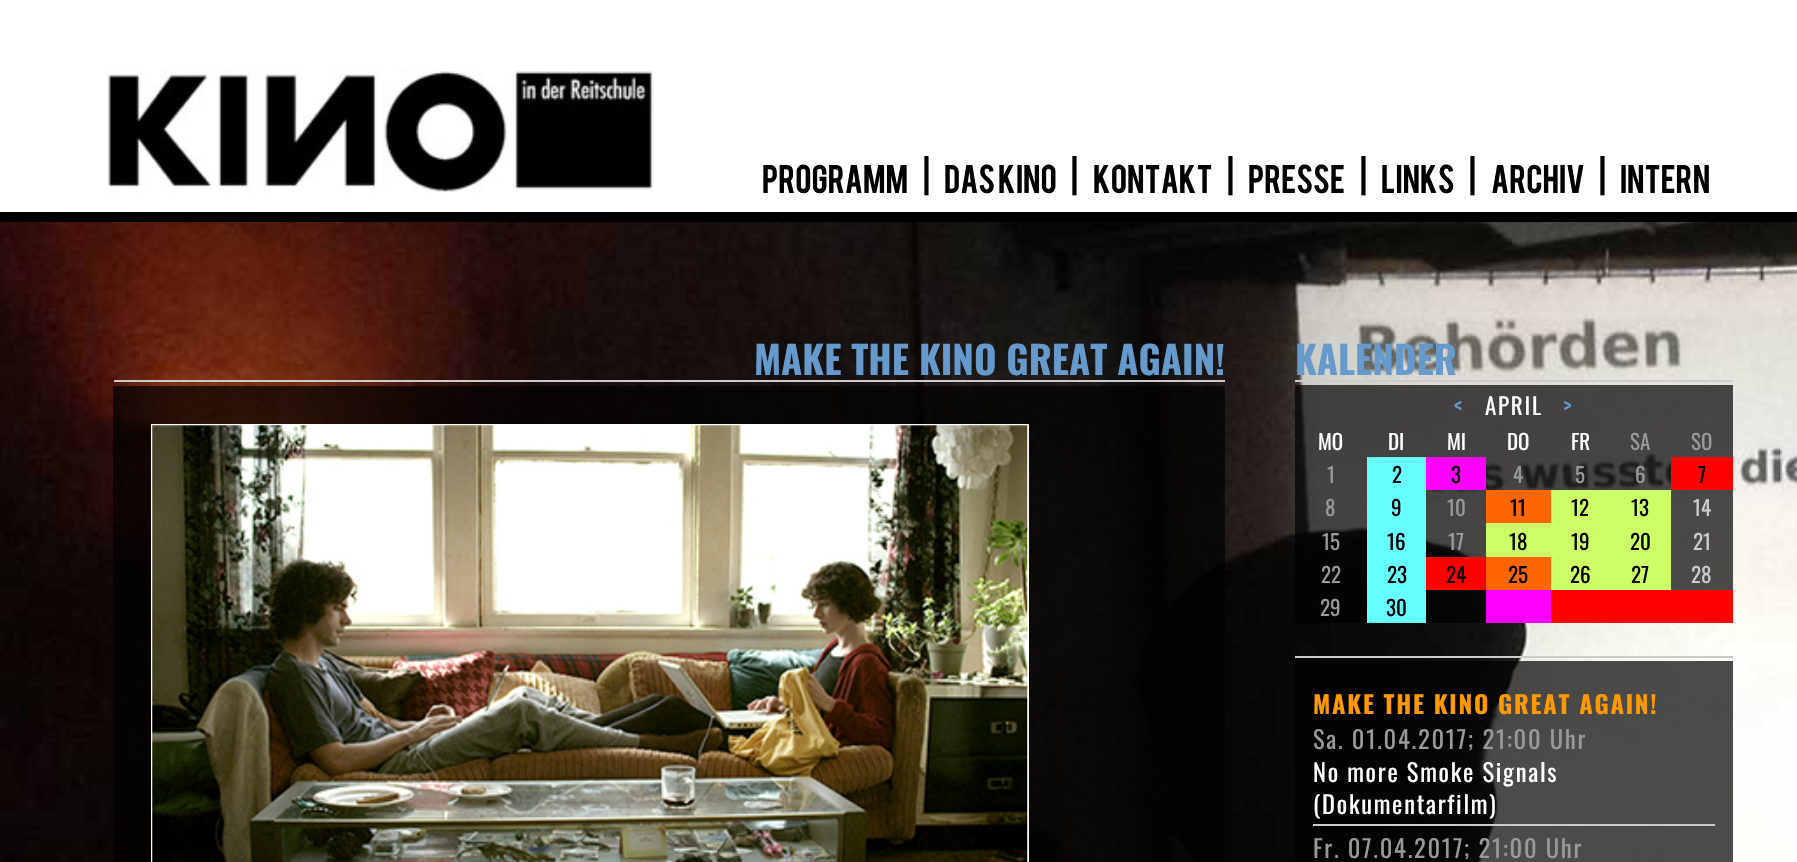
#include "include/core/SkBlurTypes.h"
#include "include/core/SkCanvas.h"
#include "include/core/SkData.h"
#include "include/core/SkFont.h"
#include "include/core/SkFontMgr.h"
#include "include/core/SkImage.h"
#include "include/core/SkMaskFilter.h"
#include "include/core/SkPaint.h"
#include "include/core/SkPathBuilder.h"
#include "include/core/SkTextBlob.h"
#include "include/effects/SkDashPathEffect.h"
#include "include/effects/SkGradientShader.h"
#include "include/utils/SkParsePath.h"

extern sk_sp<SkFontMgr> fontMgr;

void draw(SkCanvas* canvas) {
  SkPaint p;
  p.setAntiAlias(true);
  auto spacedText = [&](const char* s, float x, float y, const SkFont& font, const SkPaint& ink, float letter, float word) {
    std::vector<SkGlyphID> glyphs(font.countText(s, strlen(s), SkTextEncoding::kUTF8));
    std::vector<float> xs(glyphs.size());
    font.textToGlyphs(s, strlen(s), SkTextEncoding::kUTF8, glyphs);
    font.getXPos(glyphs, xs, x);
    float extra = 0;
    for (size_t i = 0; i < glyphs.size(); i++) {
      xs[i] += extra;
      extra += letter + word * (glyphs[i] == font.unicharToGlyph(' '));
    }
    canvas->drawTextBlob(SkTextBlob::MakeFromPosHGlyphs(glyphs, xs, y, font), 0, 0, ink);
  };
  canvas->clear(SK_ColorWHITE);
  canvas->drawImageRect(SkImages::DeferredFromEncodedData(SkData::MakeFromFileName("images/1.png")), SkRect::MakeLTRB(0, 222, 1797, 862), SkSamplingOptions());
  canvas->drawImageRect(SkImages::DeferredFromEncodedData(SkData::MakeFromFileName("images/2.png")), SkRect::MakeLTRB(107, 70, 654, 193), SkSamplingOptions());
  p.setColor(SK_ColorBLACK);
  canvas->drawRect(SkRect::MakeLTRB(0, 212, 1797, 222), p);
  p.setColor(SkColorSetRGB(204, 204, 204));
  canvas->drawRect(SkRect::MakeLTRB(114, 380, 1225, 382), p);
  p.setColor(SkColorSetARGB(179, 0, 0, 0));
  canvas->drawRect(SkRect::MakeLTRB(113, 386, 1225, 862), p);
  p.setStyle(SkPaint::kStroke_Style);
  p.setStrokeWidth(2);
  p.setColor(SK_ColorWHITE);
  canvas->drawRect(SkRect::MakeLTRB(152, 425, 1028, 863), p);
  canvas->drawImageRect(SkImages::DeferredFromEncodedData(SkData::MakeFromFileName("images/3.png")), SkRect::MakeLTRB(152, 425, 1028, 862), SkSamplingOptions());
  p.setStyle(SkPaint::kFill_Style);
  p.setColor(SkColorSetRGB(204, 204, 204));
  canvas->drawRect(SkRect::MakeLTRB(1295, 380, 1733, 382), p);
  p.setColor(SkColorSetARGB(179, 0, 0, 0));
  canvas->drawRect(SkRect::MakeLTRB(1295, 385, 1733, 623), p);
  p.setColor(SkColorSetRGB(102, 255, 255));
  canvas->drawRect(SkRect::MakeLTRB(1367, 457, 1426, 623), p);
  p.setColor(SkColorSetRGB(255, 0, 255));
  canvas->drawRect(SkRect::MakeLTRB(1426, 457, 1486, 490), p);
  p.setColor(SkColorSetRGB(255, 0, 0));
  canvas->drawRect(SkRect::MakeLTRB(1671, 457, 1733, 490), p);
  p.setColor(SkColorSetRGB(255, 102, 0));
  canvas->drawRect(SkRect::MakeLTRB(1486, 490, 1551, 523), p);
  p.setColor(SkColorSetRGB(204, 255, 102));
  canvas->drawRect(SkRect::MakeLTRB(1551, 490, 1671, 523), p);
  canvas->drawRect(SkRect::MakeLTRB(1486, 523, 1671, 557), p);
  p.setColor(SkColorSetRGB(255, 0, 0));
  canvas->drawRect(SkRect::MakeLTRB(1426, 557, 1486, 590), p);
  p.setColor(SkColorSetRGB(255, 102, 0));
  canvas->drawRect(SkRect::MakeLTRB(1486, 557, 1551, 590), p);
  p.setColor(SkColorSetRGB(204, 255, 102));
  canvas->drawRect(SkRect::MakeLTRB(1551, 557, 1671, 590), p);
  p.setColor(SkColorSetRGB(255, 0, 255));
  canvas->drawRect(SkRect::MakeLTRB(1486, 590, 1551, 623), p);
  p.setColor(SkColorSetRGB(255, 0, 0));
  canvas->drawRect(SkRect::MakeLTRB(1551, 590, 1733, 623), p);
  p.setColor(SkColorSetRGB(204, 204, 204));
  canvas->drawRect(SkRect::MakeLTRB(1295, 656, 1733, 658), p);
  p.setColor(SkColorSetARGB(179, 0, 0, 0));
  canvas->drawRect(SkRect::MakeLTRB(1295, 661, 1733, 862), p);
  p.setColor(SkColorSetRGB(204, 204, 204));
  canvas->drawRect(SkRect::MakeLTRB(1313, 824, 1715, 826), p);
  SkFont font1(fontMgr->matchFamilyStyle("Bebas", SkFontStyle::Normal()), 31.5f);
  font1.setSubpixel(true);
  p.setColor(SK_ColorBLACK);
  canvas->drawString("PROGRAMM", 762, 193, font1, p);
  canvas->drawString("|", 923, 193, font1, p);
  canvas->drawString("DAS KINO", 944, 193, font1, p);
  canvas->drawString("|", 1071, 193, font1, p);
  canvas->drawString("KONTAKT", 1093, 193, font1, p);
  canvas->drawString("|", 1227, 193, font1, p);
  canvas->drawString("PRESSE", 1248, 193, font1, p);
  canvas->drawString("|", 1360, 193, font1, p);
  canvas->drawString("LINKS", 1381, 193, font1, p);
  canvas->drawString("|", 1469, 193, font1, p);
  canvas->drawString("ARCHIV", 1491, 193, font1, p);
  canvas->drawString("|", 1599, 193, font1, p);
  canvas->drawString("INTERN", 1620, 193, font1, p);
  SkFont font2(fontMgr->matchFamilyStyle("Oswald", SkFontStyle::Bold()), 38.5f);
  font2.setSubpixel(true);
  p.setColor(SkColorSetRGB(102, 153, 204));
  canvas->drawString("MAKE THE KINO GREAT AGAIN!", 754, 375, font2, p);
  canvas->drawString("KALENDER", 1295, 375, font2, p);
  SkFont font3(fontMgr->matchFamilyStyle("Oswald", SkFontStyle::Normal()), 23);
  font3.setSubpixel(true);
  spacedText("<", 1454, 415, font3, p, 1.75f, 0);
  p.setColor(SK_ColorWHITE);
  spacedText("APRIL", 1485, 415, font3, p, 1.75f, 0);
  p.setColor(SkColorSetRGB(102, 153, 204));
  spacedText(">", 1563, 415, font3, p, 1.75f, 0);
  SkFont font4(fontMgr->matchFamilyStyle("Oswald", SkFontStyle::Normal()), 21);
  font4.setSubpixel(true);
  p.setColor(SK_ColorWHITE);
  canvas->drawString("MO", 1318, 450, font4, p);
  canvas->drawString("DI", 1388, 450, font4, p);
  canvas->drawString("MI", 1447, 450, font4, p);
  canvas->drawString("DO", 1507, 450, font4, p);
  canvas->drawString("FR", 1571, 450, font4, p);
  p.setColor(SkColorSetRGB(153, 153, 153));
  canvas->drawString("SA", 1630, 450, font4, p);
  canvas->drawString("SO", 1691, 450, font4, p);
  canvas->drawString("1", 1327, 483, font4, p);
  p.setColor(SK_ColorBLACK);
  canvas->drawString("2", 1392, 483, font4, p);
  canvas->drawString("3", 1451, 483, font4, p);
  p.setColor(SkColorSetRGB(153, 153, 153));
  canvas->drawString("4", 1513, 483, font4, p);
  canvas->drawString("5", 1575, 483, font4, p);
  canvas->drawString("6", 1635, 483, font4, p);
  p.setColor(SK_ColorBLACK);
  canvas->drawString("7", 1698, 483, font4, p);
  p.setColor(SkColorSetRGB(153, 153, 153));
  canvas->drawString("8", 1325, 516, font4, p);
  p.setColor(SK_ColorBLACK);
  canvas->drawString("9", 1391, 516, font4, p);
  p.setColor(SkColorSetRGB(153, 153, 153));
  canvas->drawString("10", 1447, 516, font4, p);
  p.setColor(SK_ColorBLACK);
  canvas->drawString("11", 1510, 516, font4, p);
  canvas->drawString("12", 1571, 516, font4, p);
  canvas->drawString("13", 1631, 516, font4, p);
  p.setColor(SkColorSetRGB(204, 204, 204));
  canvas->drawString("14", 1693, 516, font4, p);
  p.setColor(SkColorSetRGB(153, 153, 153));
  canvas->drawString("15", 1322, 550, font4, p);
  p.setColor(SK_ColorBLACK);
  canvas->drawString("16", 1387, 550, font4, p);
  p.setColor(SkColorSetRGB(153, 153, 153));
  canvas->drawString("17", 1448, 550, font4, p);
  p.setColor(SK_ColorBLACK);
  canvas->drawString("18", 1509, 550, font4, p);
  canvas->drawString("19", 1571, 550, font4, p);
  canvas->drawString("20", 1630, 550, font4, p);
  p.setColor(SkColorSetRGB(204, 204, 204));
  canvas->drawString("21", 1693, 550, font4, p);
  p.setColor(SkColorSetRGB(153, 153, 153));
  canvas->drawString("22", 1321, 583, font4, p);
  p.setColor(SK_ColorBLACK);
  canvas->drawString("23", 1387, 583, font4, p);
  canvas->drawString("24", 1446, 583, font4, p);
  canvas->drawString("25", 1508, 583, font4, p);
  canvas->drawString("26", 1570, 583, font4, p);
  canvas->drawString("27", 1631, 583, font4, p);
  p.setColor(SkColorSetRGB(204, 204, 204));
  canvas->drawString("28", 1691, 583, font4, p);
  p.setColor(SkColorSetRGB(153, 153, 153));
  canvas->drawString("29", 1320, 616, font4, p);
  p.setColor(SK_ColorBLACK);
  canvas->drawString("30", 1386, 616, font4, p);
  SkFont font5(fontMgr->matchFamilyStyle("Oswald", SkFontStyle::Bold()), 24.5f);
  font5.setSubpixel(true);
  p.setColor(SkColorSetRGB(255, 153, 0));
  spacedText("MAKE THE KINO GREAT AGAIN!", 1313, 714, font5, p, 1.75f, 0);
  SkFont font6(fontMgr->matchFamilyStyle("Oswald", SkFontStyle::Normal()), 24.5f);
  font6.setSubpixel(true);
  p.setColor(SkColorSetRGB(153, 153, 153));
  spacedText("Sa. 01.04.2017; 21:00 Uhr", 1313, 749, font6, p, 1.75f, 0);
  p.setColor(SK_ColorWHITE);
  spacedText("No more Smoke Signals", 1313, 782, font6, p, 1.75f, 0);
  spacedText("(Dokumentarfilm)", 1313, 814, font6, p, 1.75f, 0);
  p.setColor(SkColorSetRGB(153, 153, 153));
  spacedText("Fr. 07.04.2017; 21:00 Uhr", 1313, 858, font6, p, 1.75f, 0);
}
